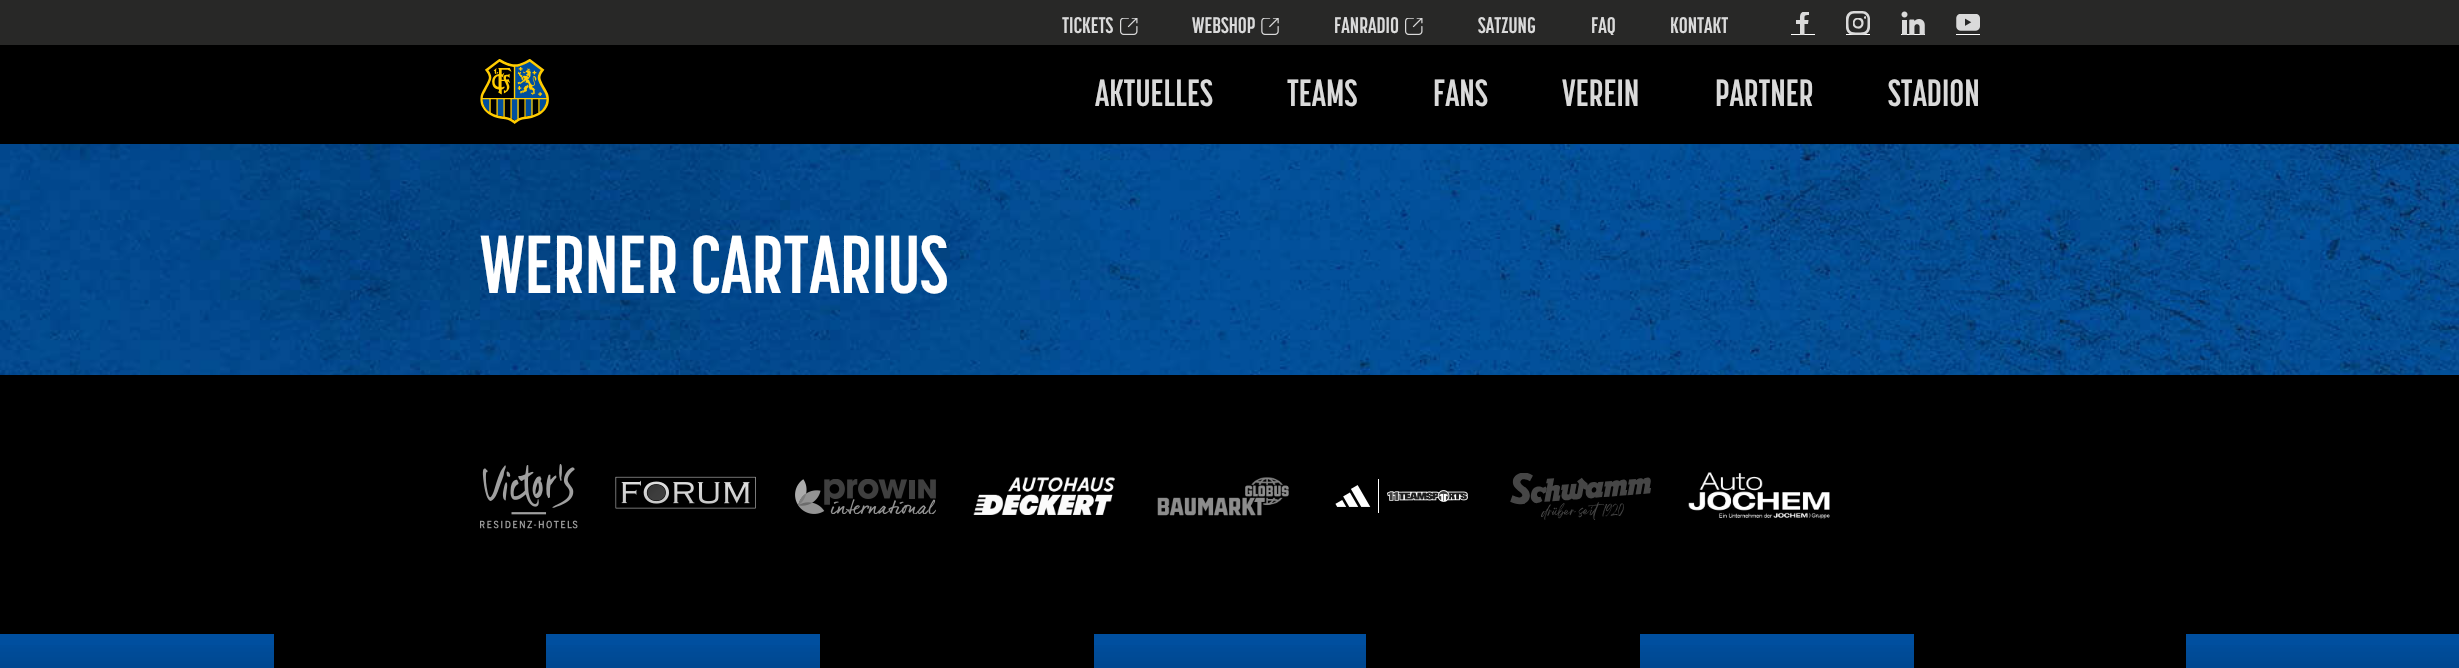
#include "include/core/SkBlurTypes.h"
#include "include/core/SkCanvas.h"
#include "include/core/SkData.h"
#include "include/core/SkFont.h"
#include "include/core/SkFontMgr.h"
#include "include/core/SkImage.h"
#include "include/core/SkMaskFilter.h"
#include "include/core/SkPaint.h"
#include "include/core/SkPathBuilder.h"
#include "include/core/SkTextBlob.h"
#include "include/effects/SkDashPathEffect.h"
#include "include/effects/SkGradientShader.h"
#include "include/utils/SkParsePath.h"

extern sk_sp<SkFontMgr> fontMgr;

void draw(SkCanvas* canvas) {
  SkPaint p;
  p.setAntiAlias(true);
  canvas->clear(SK_ColorWHITE);
  canvas->drawImageRect(SkImages::DeferredFromEncodedData(SkData::MakeFromFileName("images/1.png")), SkRect::MakeLTRB(0, 144, 2459, 375), SkSamplingOptions());
  p.setColor(SkColorSetRGB(40, 40, 39));
  canvas->drawRect(SkRect::MakeLTRB(0, 0, 2459, 45), p);
  canvas->drawImageRect(SkImages::DeferredFromEncodedData(SkData::MakeFromFileName("images/2.png")), SkRect::MakeLTRB(1120, 18, 1138, 35), SkSamplingOptions());
  canvas->drawImageRect(SkImages::DeferredFromEncodedData(SkData::MakeFromFileName("images/3.png")), SkRect::MakeLTRB(1261, 18, 1279, 35), SkSamplingOptions());
  canvas->drawImageRect(SkImages::DeferredFromEncodedData(SkData::MakeFromFileName("images/2.png")), SkRect::MakeLTRB(1405, 18, 1423, 35), SkSamplingOptions());
  p.setColor(SK_ColorWHITE);
  canvas->drawRect(SkRect::MakeLTRB(1791, 34, 1815, 35), p);
  p.setColor(SkColorSetRGB(218, 218, 218));
  canvas->drawPath(SkPathBuilder().moveTo(1809, 12).lineTo(1809, 15).cubicTo(1804, 15, 1804.5f, 15.5f, 1804.5f, 20).lineTo(1808.5f, 20).lineTo(1808, 24).lineTo(1804.5f, 24).lineTo(1804.5f, 35).lineTo(1800, 35).lineTo(1800, 24).lineTo(1796, 24).lineTo(1796, 20).lineTo(1800, 20).cubicTo(1800, 17, 1799.5f, 13.5f, 1802.5f, 12).close().detach(), p);
  p.setColor(SK_ColorWHITE);
  canvas->drawRect(SkRect::MakeLTRB(1846, 34, 1870, 35), p);
  p.setColor(SkColorSetRGB(218, 218, 218));
  canvas->drawPath(SkPathBuilder(SkPathFillType::kEvenOdd).moveTo(1862.5f, 11).lineTo(1853.5f, 11).cubicTo(1849.5f, 11, 1846, 14.5f, 1846, 18.5f).lineTo(1846, 27.5f).cubicTo(1846, 31.5f, 1849.5f, 35, 1853.5f, 35).lineTo(1862.5f, 35).cubicTo(1866.5f, 35, 1870, 31.5f, 1870, 27.5f).lineTo(1870, 18.5f).cubicTo(1870, 14.5f, 1866.5f, 11, 1862.5f, 11).close().moveTo(1862, 13.5f).cubicTo(1864.5f, 13.5f, 1867, 15.5f, 1867.5f, 18).lineTo(1867.5f, 24.5f).cubicTo(1867.5f, 32, 1865, 32.5f, 1858, 32.5f).cubicTo(1851, 32.5f, 1848.5f, 32, 1848.5f, 24.5f).cubicTo(1848.5f, 20, 1848, 13.5f, 1854.5f, 13.5f).close().detach(), p);
  canvas->drawPath(SkPathBuilder(SkPathFillType::kEvenOdd).moveTo(1853, 21).cubicTo(1854, 18.5f, 1855.5f, 18, 1857.5f, 18).lineTo(1860.5f, 18).cubicTo(1865.5f, 19, 1864.5f, 30, 1857.5f, 28.5f).cubicTo(1855.5f, 28.5f, 1853.5f, 27, 1853, 25.5f).close().moveTo(1858, 19.5f).cubicTo(1862.5f, 20, 1862.5f, 26.5f, 1858, 26.5f).cubicTo(1853.5f, 26.5f, 1853.5f, 19.5f, 1858, 19.5f).close().detach(), p);
  canvas->drawPath(SkPathBuilder().moveTo(1865, 16).lineTo(1866, 16.5f).lineTo(1866, 18.5f).cubicTo(1865.5f, 19, 1864.5f, 19, 1864, 18).lineTo(1864, 17).close().detach(), p);
  p.setColor(SK_ColorWHITE);
  canvas->drawRect(SkRect::MakeLTRB(1901, 34, 1925, 35), p);
  canvas->drawImageRect(SkImages::DeferredFromEncodedData(SkData::MakeFromFileName("images/4.png")), SkRect::MakeLTRB(1901, 11, 1925, 35), SkSamplingOptions());
  canvas->drawRect(SkRect::MakeLTRB(1956, 34, 1980, 35), p);
  canvas->drawImageRect(SkImages::DeferredFromEncodedData(SkData::MakeFromFileName("images/5.png")), SkRect::MakeLTRB(1956, 14, 1980, 31), SkSamplingOptions());
  p.setColor(SK_ColorBLACK);
  canvas->drawRect(SkRect::MakeLTRB(0, 45, 2459, 144), p);
  canvas->drawImageRect(SkImages::DeferredFromEncodedData(SkData::MakeFromFileName("images/6.png")), SkRect::MakeLTRB(480, 59, 549, 124), SkSamplingOptions());
  canvas->drawRect(SkRect::MakeLTRB(0, 375, 2459, 668), p);
  canvas->drawImageRect(SkImages::DeferredFromEncodedData(SkData::MakeFromFileName("images/7.png")), SkRect::MakeLTRB(480, 464, 578, 529), SkSamplingOptions());
  canvas->drawImageRect(SkImages::DeferredFromEncodedData(SkData::MakeFromFileName("images/8.png")), SkRect::MakeLTRB(615, 476, 756, 509), SkSamplingOptions());
  canvas->drawImageRect(SkImages::DeferredFromEncodedData(SkData::MakeFromFileName("images/9.png")), SkRect::MakeLTRB(795, 479, 936, 514), SkSamplingOptions());
  canvas->drawImageRect(SkImages::DeferredFromEncodedData(SkData::MakeFromFileName("images/10.png")), SkRect::MakeLTRB(973, 477, 1115, 515), SkSamplingOptions());
  canvas->drawImageRect(SkImages::DeferredFromEncodedData(SkData::MakeFromFileName("images/11.png")), SkRect::MakeLTRB(1157, 477, 1289, 516), SkSamplingOptions());
  canvas->drawImageRect(SkImages::DeferredFromEncodedData(SkData::MakeFromFileName("images/12.png")), SkRect::MakeLTRB(1335, 479, 1468, 513), SkSamplingOptions());
  canvas->drawImageRect(SkImages::DeferredFromEncodedData(SkData::MakeFromFileName("images/13.png")), SkRect::MakeLTRB(1510, 473, 1651, 520), SkSamplingOptions());
  canvas->drawImageRect(SkImages::DeferredFromEncodedData(SkData::MakeFromFileName("images/14.png")), SkRect::MakeLTRB(1688, 472, 1830, 519), SkSamplingOptions());
  p.setColor(SkColorSetRGB(0, 79, 159));
  canvas->drawRect(SkRect::MakeLTRB(0, 634, 274, 668), p);
  canvas->drawRect(SkRect::MakeLTRB(546, 634, 820, 668), p);
  canvas->drawRect(SkRect::MakeLTRB(1094, 634, 1366, 668), p);
  canvas->drawRect(SkRect::MakeLTRB(1640, 634, 1914, 668), p);
  canvas->drawRect(SkRect::MakeLTRB(2186, 634, 2459, 668), p);
  {
    const SkColor colors[] = {SK_ColorBLACK, SkColorSetARGB(0, 0, 0, 0)};
    const float stops[] = {0, 1};
    const SkPoint ends[] = {{1230, 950}, {1230, 638}};
    p.setShader(SkGradientShader::MakeLinear(ends, colors, stops, 2, SkTileMode::kClamp));
    p.setAlpha(255);
  }
  canvas->drawRect(SkRect::MakeLTRB(0, 645, 2459, 668), p);
  SkFont font1(fontMgr->matchFamilyStyle("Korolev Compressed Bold", SkFontStyle::Bold()), 22.5f);
  font1.setSubpixel(true);
  p.setShader(nullptr);
  p.setColor(SkColorSetRGB(218, 218, 218));
  canvas->drawString("TICKETS", 1062, 33, font1, p);
  canvas->drawString("WEBSHOP", 1192, 33, font1, p);
  canvas->drawString("FANRADIO", 1334, 33, font1, p);
  canvas->drawString("SATZUNG", 1478, 33, font1, p);
  canvas->drawString("FAQ", 1591, 33, font1, p);
  canvas->drawString("KONTAKT", 1670, 33, font1, p);
  SkFont font2(fontMgr->matchFamilyStyle("Korolev Compressed Bold", SkFontStyle::Bold()), 37.5f);
  font2.setSubpixel(true);
  canvas->drawString("AKTUELLES", 1095, 106, font2, p);
  canvas->drawString("TEAMS", 1287, 106, font2, p);
  canvas->drawString("FANS", 1433, 106, font2, p);
  canvas->drawString("VEREIN", 1562, 106, font2, p);
  canvas->drawString("PARTNER", 1715, 106, font2, p);
  canvas->drawString("STADION", 1888, 106, font2, p);
  SkFont font3(fontMgr->matchFamilyStyle("Korolev Compressed Bold", SkFontStyle::Bold()), 81.25f);
  font3.setSubpixel(true);
  p.setColor(SK_ColorWHITE);
  canvas->drawString("WERNER CARTARIUS", 480, 293, font3, p);
}
